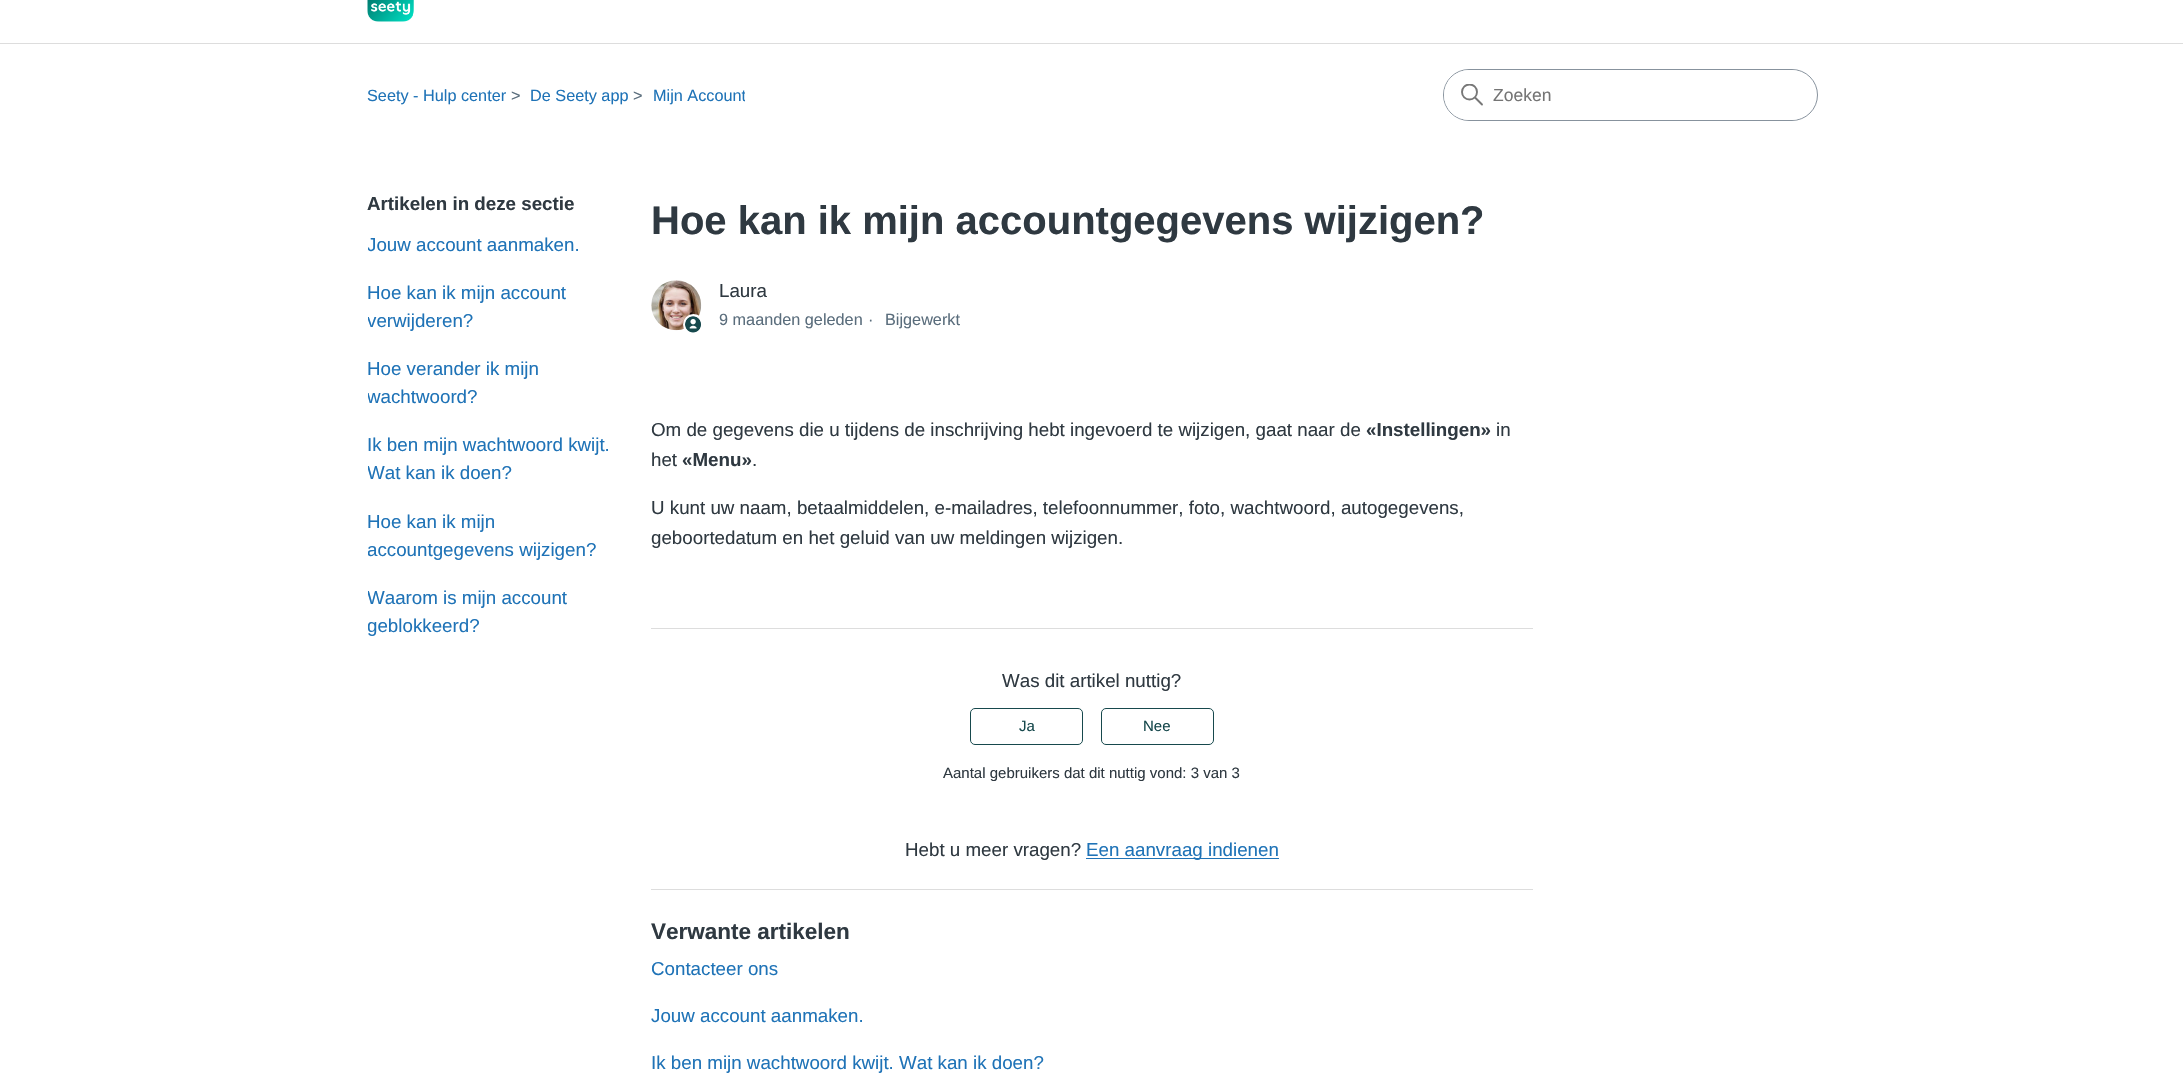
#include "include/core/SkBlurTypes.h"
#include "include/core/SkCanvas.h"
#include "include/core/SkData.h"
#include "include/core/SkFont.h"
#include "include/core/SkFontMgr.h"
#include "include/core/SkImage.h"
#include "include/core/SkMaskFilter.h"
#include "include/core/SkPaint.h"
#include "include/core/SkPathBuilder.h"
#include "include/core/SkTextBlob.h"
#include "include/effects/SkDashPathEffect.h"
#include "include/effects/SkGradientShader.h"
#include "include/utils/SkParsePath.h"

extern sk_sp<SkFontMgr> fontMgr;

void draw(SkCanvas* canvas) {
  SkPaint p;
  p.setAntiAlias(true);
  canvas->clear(SK_ColorWHITE);
  canvas->drawImageRect(SkImages::DeferredFromEncodedData(SkData::MakeFromFileName("images/1.png")), SkRect::MakeLTRB(367, 0, 414, 22), SkSamplingOptions());
  p.setColor(SkColorSetRGB(221, 221, 221));
  canvas->drawRect(SkRect::MakeLTRB(0, 43, 2183, 44), p);
  p.setStyle(SkPaint::kStroke_Style);
  p.setStrokeWidth(1);
  p.setColor(SkColorSetRGB(135, 146, 157));
  canvas->drawRoundRect(SkRect::MakeLTRB(1443.5f, 69.5f, 1817.5f, 120.5f), 25.5f, 25.5f, p);
  p.setStyle(SkPaint::kFill_Style);
  p.setColor(SK_ColorWHITE);
  canvas->drawRoundRect(SkRect::MakeLTRB(1444, 70, 1816, 120), 25, 25, p);
  canvas->save();
  canvas->clipRect(SkRect::MakeLTRB(1461, 84, 1484, 106));
  p.setStyle(SkPaint::kStroke_Style);
  p.setStrokeWidth(1.9f);
  p.setColor(SkColorSetRGB(119, 119, 119));
  canvas->drawCircle(1469.5f, 92, 7.5f, p);
  canvas->restore();
  p.setStrokeCap(SkPaint::kRound_Cap);
  canvas->drawPath(SkPathBuilder().moveTo(1482, 104.5f).lineTo(1475.5f, 98).detach(), p);
  canvas->drawImageRect(SkImages::DeferredFromEncodedData(SkData::MakeFromFileName("images/2.png")), SkRect::MakeLTRB(651, 280, 702, 331), SkSamplingOptions());
  p.setStyle(SkPaint::kFill_Style);
  p.setColor(SK_ColorWHITE);
  canvas->drawCircle(693.5f, 324.5f, 9, p);
  p.setStyle(SkPaint::kStroke_Style);
  p.setStrokeWidth(3);
  p.setStrokeCap(SkPaint::kButt_Cap);
  canvas->drawCircle(693.5f, 324.5f, 9, p);
  canvas->drawImageRect(SkImages::DeferredFromEncodedData(SkData::MakeFromFileName("images/3.png")), SkRect::MakeLTRB(685, 316, 701, 333), SkSamplingOptions());
  p.setStyle(SkPaint::kFill_Style);
  p.setColor(SkColorSetRGB(221, 221, 221));
  canvas->drawRect(SkRect::MakeLTRB(651, 628, 1533, 629), p);
  p.setStyle(SkPaint::kStroke_Style);
  p.setStrokeWidth(1);
  p.setColor(SkColorSetRGB(23, 73, 77));
  canvas->drawRoundRect(SkRect::MakeLTRB(970.5f, 708.5f, 1082.5f, 744.5f), 4.5f, 4.5f, p);
  canvas->drawRoundRect(SkRect::MakeLTRB(1101.5f, 708.5f, 1213.5f, 744.5f), 4.5f, 4.5f, p);
  p.setStyle(SkPaint::kFill_Style);
  p.setColor(SkColorSetRGB(31, 115, 183));
  canvas->drawRect(SkRect::MakeLTRB(1086, 858, 1279, 859), p);
  p.setColor(SkColorSetRGB(221, 221, 221));
  canvas->drawRect(SkRect::MakeLTRB(651, 889, 1533, 890), p);
  SkFont font1(fontMgr->matchFamilyStyle("Liberation Sans", SkFontStyle::Normal()), 16.25f);
  font1.setSubpixel(true);
  p.setColor(SkColorSetRGB(31, 115, 183));
  canvas->drawString("Seety - Hulp center", 367, 101, font1, p);
  p.setColor(SkColorSetRGB(90, 109, 124));
  canvas->drawString(">", 511, 101, font1, p);
  p.setColor(SkColorSetRGB(31, 115, 183));
  canvas->drawString("De Seety app", 530, 101, font1, p);
  p.setColor(SkColorSetRGB(90, 109, 124));
  canvas->drawString(">", 633, 101, font1, p);
  canvas->save();
  canvas->clipRect(SkRect::MakeLTRB(629, 84, 745, 109));
  p.setColor(SkColorSetRGB(31, 115, 183));
  canvas->drawString("Mijn Account", 653, 101, font1, p);
  canvas->restore();
  SkFont font2(fontMgr->matchFamilyStyle("Liberation Sans", SkFontStyle::Normal()), 17.5f);
  font2.setSubpixel(true);
  p.setColor(SkColorSetRGB(117, 117, 117));
  canvas->drawString("Zoeken", 1493, 101, font2, p);
  SkFont font3(fontMgr->matchFamilyStyle("Liberation Sans", SkFontStyle::Bold()), 18.75f);
  font3.setSubpixel(true);
  p.setColor(SkColorSetRGB(47, 57, 65));
  canvas->drawString("Artikelen in deze sectie", 367, 210, font3, p);
  canvas->save();
  canvas->clipRect(SkRect::MakeLTRB(368, 231, 614, 259));
  SkFont font4(fontMgr->matchFamilyStyle("Liberation Sans", SkFontStyle::Normal()), 18.75f);
  font4.setSubpixel(true);
  p.setColor(SkColorSetRGB(31, 115, 183));
  canvas->drawString("Jouw account aanmaken.", 367, 251, font4, p);
  canvas->restore();
  canvas->drawString("Hoe kan ik mijn account", 367, 299, font4, p);
  canvas->save();
  canvas->clipRect(SkRect::MakeLTRB(368, 279, 614, 335));
  canvas->drawString("verwijderen?", 367, 327, font4, p);
  canvas->restore();
  canvas->drawString("Hoe verander ik mijn", 367, 375, font4, p);
  canvas->save();
  canvas->clipRect(SkRect::MakeLTRB(368, 355, 614, 411));
  canvas->drawString("wachtwoord?", 367, 403, font4, p);
  canvas->restore();
  canvas->drawString("Ik ben mijn wachtwoord kwijt.", 367, 451, font4, p);
  canvas->save();
  canvas->clipRect(SkRect::MakeLTRB(368, 431, 614, 488));
  canvas->drawString("Wat kan ik doen?", 367, 479, font4, p);
  canvas->restore();
  canvas->drawString("Hoe kan ik mijn", 367, 528, font4, p);
  canvas->save();
  canvas->clipRect(SkRect::MakeLTRB(368, 508, 614, 564));
  canvas->drawString("accountgegevens wijzigen?", 367, 556, font4, p);
  canvas->restore();
  canvas->save();
  canvas->clipRect(SkRect::MakeLTRB(368, 584, 614, 640));
  canvas->drawString("Waarom is mijn account", 367, 604, font4, p);
  canvas->drawString("geblokkeerd?", 367, 632, font4, p);
  canvas->restore();
  SkFont font5(fontMgr->matchFamilyStyle("Liberation Sans", SkFontStyle::Bold()), 40);
  font5.setSubpixel(true);
  p.setColor(SkColorSetRGB(47, 57, 65));
  canvas->drawString("Hoe kan ik mijn accountgegevens wijzigen?", 651, 234, font5, p);
  canvas->drawString("Laura", 719, 297, font4, p);
  p.setColor(SkColorSetRGB(90, 109, 124));
  canvas->drawString("9 maanden geleden", 719, 325, font1, p);
  canvas->drawString("·", 868, 325, font1, p);
  canvas->drawString("Bijgewerkt", 885, 325, font1, p);
  p.setColor(SkColorSetRGB(47, 57, 65));
  canvas->drawString("Om de gegevens die u tijdens de inschrijving hebt ingevoerd te wijzigen, gaat naar de", 651, 436, font4, p);
  canvas->drawString("«Instellingen»", 1366, 436, font3, p);
  canvas->drawString("in", 1496, 436, font4, p);
  canvas->drawString("het", 651, 466, font4, p);
  canvas->drawString("«Menu»", 682, 466, font3, p);
  canvas->drawString(".", 752, 466, font4, p);
  canvas->drawString("U kunt uw naam, betaalmiddelen, e-mailadres, telefoonnummer, foto, wachtwoord, autogegevens,", 651, 514, font4, p);
  canvas->drawString("geboortedatum en het geluid van uw meldingen wijzigen.", 651, 544, font4, p);
  canvas->drawString("Was dit artikel nuttig?", 1002, 687, font4, p);
  SkFont font6(fontMgr->matchFamilyStyle("Liberation Sans", SkFontStyle::Normal()), 15);
  font6.setSubpixel(true);
  p.setColor(SkColorSetRGB(23, 73, 77));
  canvas->drawString("Ja", 1019, 731, font6, p);
  canvas->drawString("Nee", 1143, 731, font6, p);
  p.setColor(SkColorSetRGB(47, 57, 65));
  canvas->drawString("Aantal gebruikers dat dit nuttig vond: 3 van 3", 943, 778, font6, p);
  canvas->drawString("Hebt u meer vragen?", 905, 856, font4, p);
  p.setColor(SkColorSetRGB(31, 115, 183));
  canvas->drawString("Een aanvraag indienen", 1086, 856, font4, p);
  SkFont font7(fontMgr->matchFamilyStyle("Liberation Sans", SkFontStyle::Bold()), 22.5f);
  font7.setSubpixel(true);
  p.setColor(SkColorSetRGB(47, 57, 65));
  canvas->drawString("Verwante artikelen", 651, 939, font7, p);
  p.setColor(SkColorSetRGB(31, 115, 183));
  canvas->drawString("Contacteer ons", 651, 975, font4, p);
  canvas->drawString("Jouw account aanmaken.", 651, 1022, font4, p);
  canvas->drawString("Ik ben mijn wachtwoord kwijt. Wat kan ik doen?", 651, 1069, font4, p);
}
